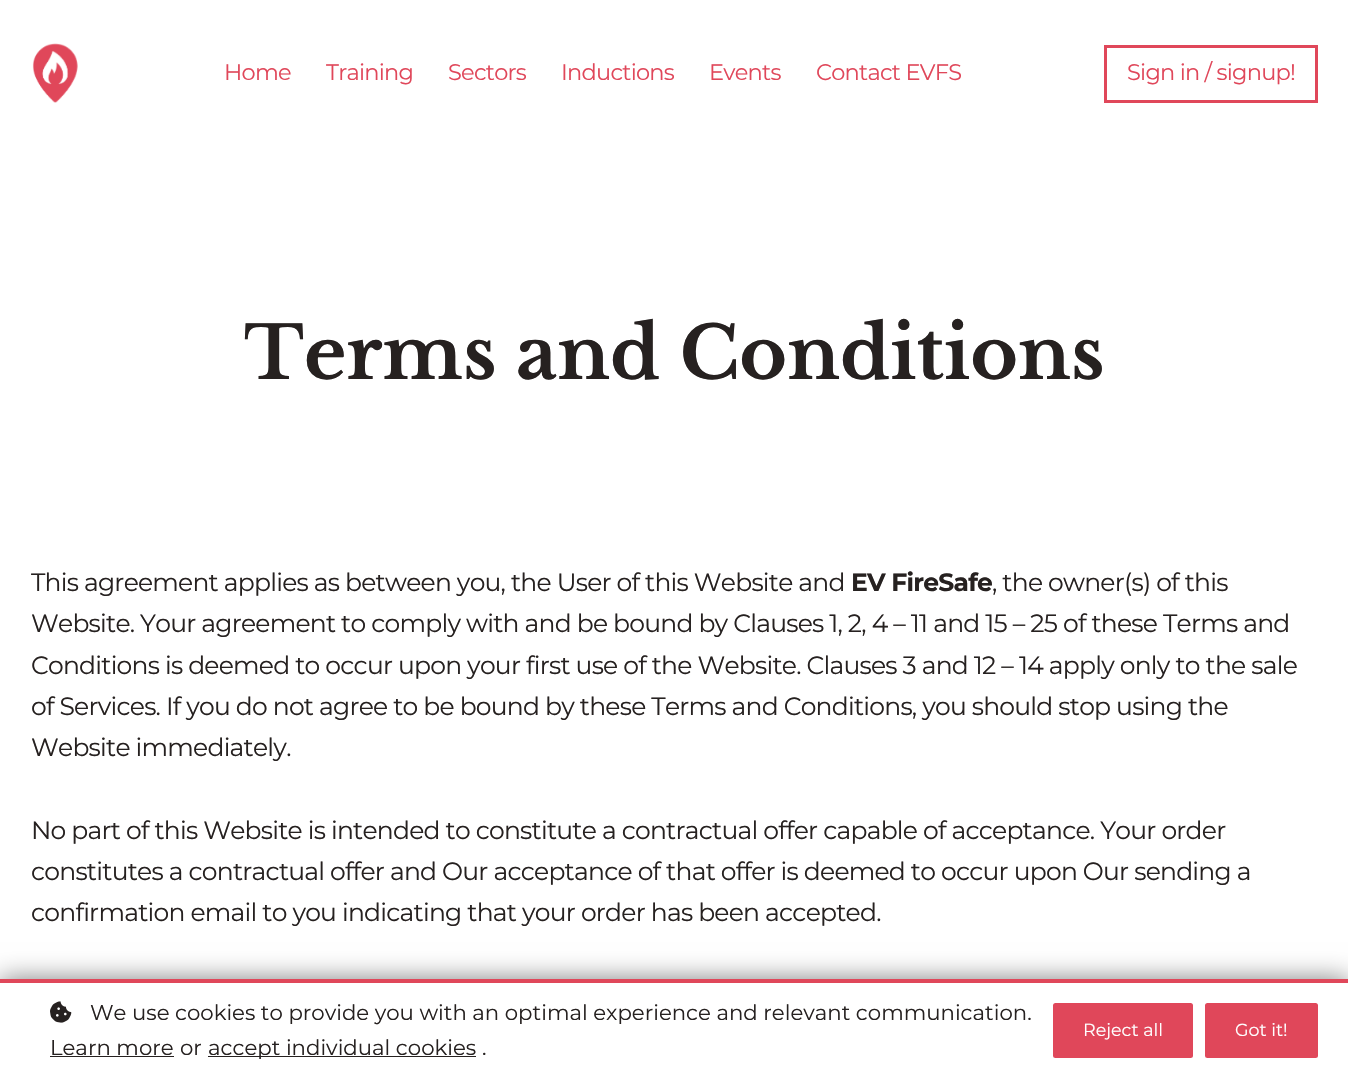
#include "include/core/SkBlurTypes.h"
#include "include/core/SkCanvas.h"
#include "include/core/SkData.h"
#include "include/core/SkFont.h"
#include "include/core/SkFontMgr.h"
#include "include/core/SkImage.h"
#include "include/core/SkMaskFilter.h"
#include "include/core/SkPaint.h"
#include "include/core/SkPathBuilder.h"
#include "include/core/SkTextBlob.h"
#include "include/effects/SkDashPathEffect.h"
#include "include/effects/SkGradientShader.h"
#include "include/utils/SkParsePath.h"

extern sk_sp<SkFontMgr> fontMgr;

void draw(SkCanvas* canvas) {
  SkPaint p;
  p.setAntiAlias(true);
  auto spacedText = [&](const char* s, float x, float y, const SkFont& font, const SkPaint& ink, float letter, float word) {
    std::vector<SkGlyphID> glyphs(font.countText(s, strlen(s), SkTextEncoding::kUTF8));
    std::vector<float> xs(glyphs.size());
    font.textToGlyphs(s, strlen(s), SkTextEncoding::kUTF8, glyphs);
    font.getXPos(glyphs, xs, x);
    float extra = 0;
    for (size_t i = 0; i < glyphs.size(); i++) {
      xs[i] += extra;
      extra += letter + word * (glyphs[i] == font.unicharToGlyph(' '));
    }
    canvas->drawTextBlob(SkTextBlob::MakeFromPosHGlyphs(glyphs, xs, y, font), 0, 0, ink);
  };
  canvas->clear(SK_ColorWHITE);
  canvas->drawImageRect(SkImages::DeferredFromEncodedData(SkData::MakeFromFileName("images/1.png")), SkRect::MakeLTRB(32, 43, 78, 103), SkSamplingOptions());
  p.setStyle(SkPaint::kStroke_Style);
  p.setStrokeWidth(3);
  p.setColor(SkColorSetRGB(224, 71, 90));
  canvas->drawRect(SkRect::MakeLTRB(1105.5f, 46.5f, 1316.5f, 101.5f), p);
  p.setStyle(SkPaint::kFill_Style);
  p.setColor(SkColorSetARGB(128, 0, 0, 0));
  p.setMaskFilter(SkMaskFilter::MakeBlur(kNormal_SkBlurStyle, 12.5f));
  canvas->drawRect(SkRect::MakeLTRB(0, 979, 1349, 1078), p);
  p.setMaskFilter(nullptr);
  p.setColor(SK_ColorWHITE);
  canvas->drawRect(SkRect::MakeLTRB(0, 983, 1348, 1077), p);
  p.setColor(SkColorSetRGB(224, 71, 90));
  canvas->drawRect(SkRect::MakeLTRB(0, 979, 1348, 983), p);
  canvas->drawImageRect(SkImages::DeferredFromEncodedData(SkData::MakeFromFileName("images/2.png")), SkRect::MakeLTRB(50, 1001, 72, 1023), SkSamplingOptions());
  p.setColor(SkColorSetRGB(38, 33, 32));
  canvas->drawRect(SkRect::MakeLTRB(50, 1056, 174, 1057), p);
  canvas->drawRect(SkRect::MakeLTRB(208, 1056, 476, 1057), p);
  p.setColor(SkColorSetRGB(224, 71, 90));
  canvas->drawRoundRect(SkRect::MakeLTRB(1053, 1003, 1193, 1058), 2.5f, 2.5f, p);
  canvas->drawRoundRect(SkRect::MakeLTRB(1205, 1003, 1318, 1058), 2.5f, 2.5f, p);
  SkFont font1(fontMgr->matchFamilyStyle("Montserrat", SkFontStyle::Normal()), 22.5f);
  font1.setSubpixel(true);
  spacedText("Home", 224, 80, font1, p, -0.75f, 0);
  spacedText("Training", 326, 80, font1, p, -0.75f, 0);
  spacedText("Sectors", 448, 80, font1, p, -0.75f, 0);
  spacedText("Inductions", 561, 80, font1, p, -0.75f, 0);
  spacedText("Events", 709, 80, font1, p, -0.75f, 0);
  spacedText("Contact EVFS", 816, 80, font1, p, -0.75f, 0);
  spacedText("Sign in / signup!", 1127, 80, font1, p, -0.75f, 0);
  SkFont font2(fontMgr->matchFamilyStyle("Libre Baskerville", SkFontStyle::Bold()), 72.5f);
  font2.setSubpixel(true);
  p.setColor(SkColorSetRGB(38, 33, 32));
  canvas->drawString("Terms and Conditions", 244, 379, font2, p);
  SkFont font3(fontMgr->matchFamilyStyle("Montserrat", SkFontStyle::Normal()), 25);
  font3.setSubpixel(true);
  spacedText("This agreement applies as between you, the User of this Website and", 31, 591, font3, p, -0.75f, 0);
  SkFont font4(fontMgr->matchFamilyStyle("Montserrat", SkFontStyle::Bold()), 25);
  font4.setSubpixel(true);
  spacedText("EV FireSafe", 851, 591, font4, p, -0.75f, 0);
  spacedText(", the owner(s) of this", 992, 591, font3, p, -0.75f, 0);
  spacedText("Website. Your agreement to comply with and be bound by Clauses 1, 2, 4 – 11 and 15 – 25 of these Terms and", 31, 632, font3, p, -0.75f, 0);
  spacedText("Conditions is deemed to occur upon your first use of the Website. Clauses 3 and 12 – 14 apply only to the sale", 31, 674, font3, p, -0.75f, 0);
  spacedText("of Services. If you do not agree to be bound by these Terms and Conditions, you should stop using the", 31, 715, font3, p, -0.75f, 0);
  spacedText("Website immediately.", 31, 756, font3, p, -0.75f, 0);
  spacedText("No part of this Website is intended to constitute a contractual offer capable of acceptance. Your order", 31, 839, font3, p, -0.75f, 0);
  spacedText("constitutes a contractual offer and Our acceptance of that offer is deemed to occur upon Our sending a", 31, 880, font3, p, -0.75f, 0);
  spacedText("confirmation email to you indicating that your order has been accepted.", 31, 921, font3, p, -0.75f, 0);
  SkFont font5(fontMgr->matchFamilyStyle("Montserrat", SkFontStyle::Normal()), 21.25f);
  font5.setSubpixel(true);
  canvas->drawString("We use cookies to provide you with an optimal experience and relevant communication.", 90, 1020, font5, p);
  canvas->drawString("Learn more", 50, 1055, font5, p);
  canvas->drawString("or", 180, 1055, font5, p);
  canvas->drawString("accept individual cookies", 208, 1055, font5, p);
  canvas->drawString(".", 482, 1055, font5, p);
  SkFont font6(fontMgr->matchFamilyStyle("Montserrat", SkFontStyle::Normal()), 17.5f);
  font6.setSubpixel(true);
  p.setColor(SK_ColorWHITE);
  canvas->drawString("Reject all", 1083, 1036, font6, p);
  canvas->drawString("Got it!", 1235, 1036, font6, p);
}
